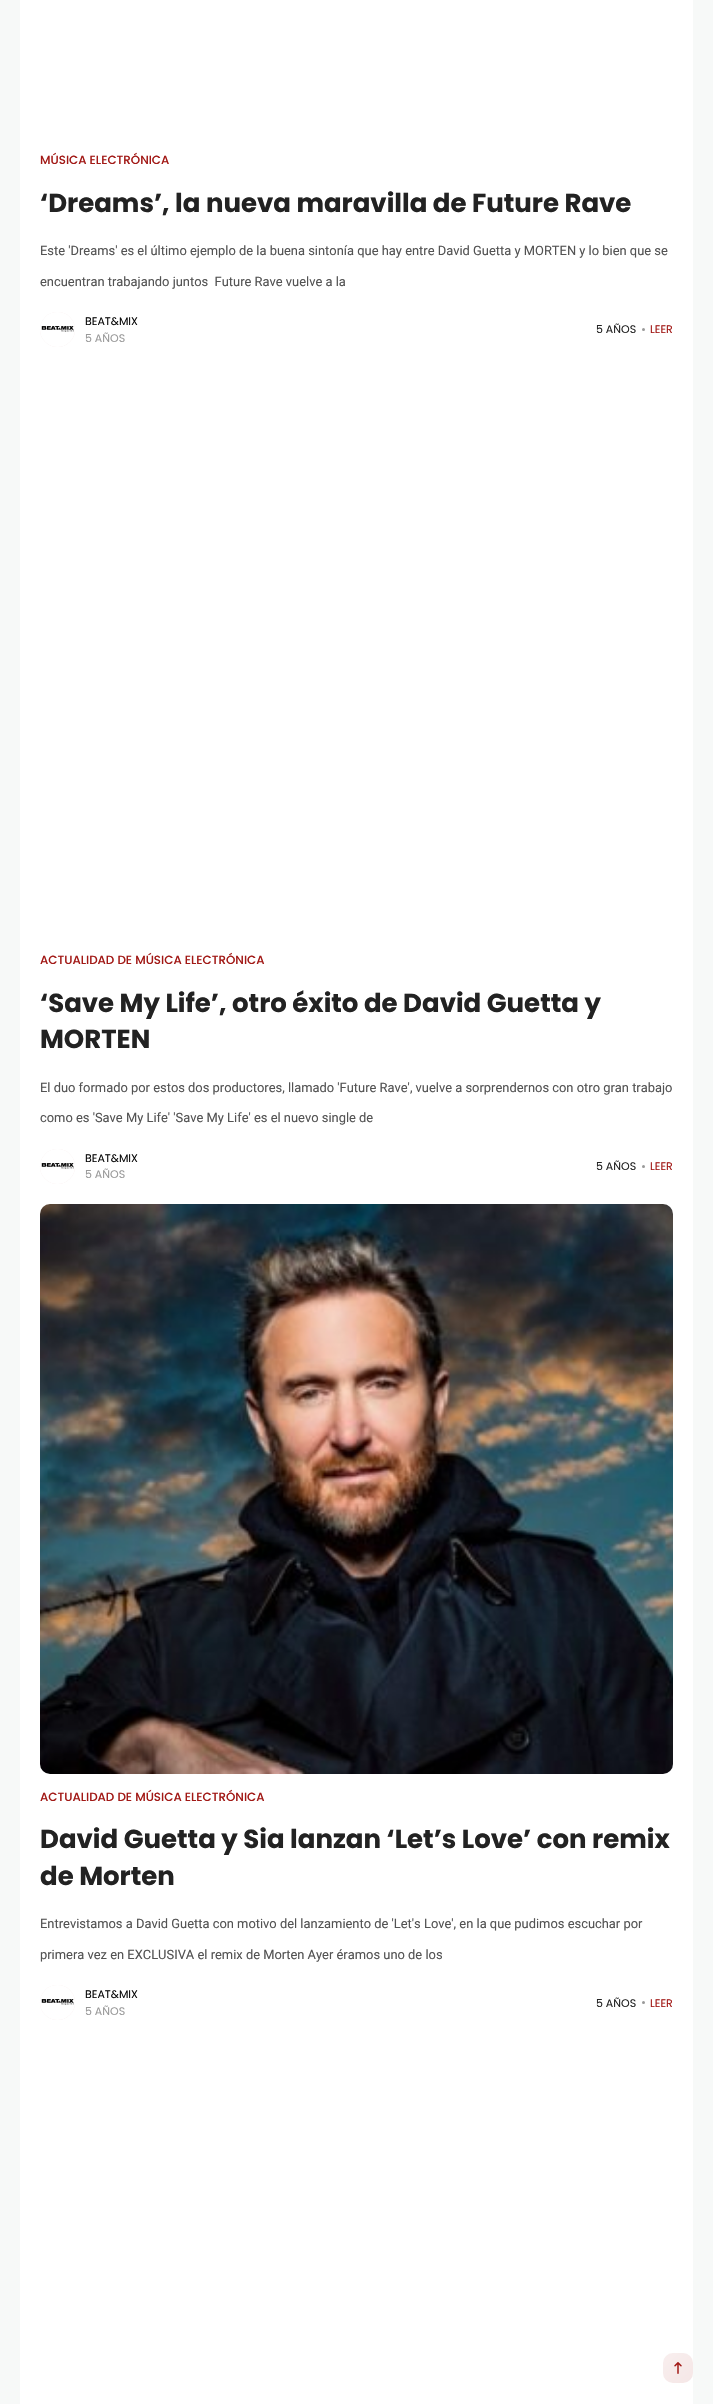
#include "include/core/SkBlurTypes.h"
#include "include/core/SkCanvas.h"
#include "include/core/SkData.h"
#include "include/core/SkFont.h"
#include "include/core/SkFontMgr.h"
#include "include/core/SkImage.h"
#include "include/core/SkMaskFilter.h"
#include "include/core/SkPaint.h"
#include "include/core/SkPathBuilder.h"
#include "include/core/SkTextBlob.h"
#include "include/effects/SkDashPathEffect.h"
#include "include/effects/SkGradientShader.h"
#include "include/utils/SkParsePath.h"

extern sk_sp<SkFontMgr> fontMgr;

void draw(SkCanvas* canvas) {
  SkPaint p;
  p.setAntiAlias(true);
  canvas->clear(SkColorSetRGB(247, 249, 248));
  p.setColor(SK_ColorWHITE);
  canvas->drawRect(SkRect::MakeLTRB(20, 0, 693, 2404), p);
  {
    const SkColor colors[] = {SkColorSetRGB(162, 25, 22), SK_ColorWHITE};
    const float stops[] = {0, 1};
    const SkPoint ends[] = {{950, 1222}, {-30, 242}};
    p.setShader(SkGradientShader::MakeLinear(ends, colors, stops, 2, SkTileMode::kClamp));
    p.setAlpha(255);
  }
  canvas->drawCircle(57.5f, 329.5f, 17.5f, p);
  canvas->drawImageRect(SkImages::DeferredFromEncodedData(SkData::MakeFromFileName("images/1.png")), SkRect::MakeLTRB(40, 312, 75, 347), SkSamplingOptions());
  p.setShader(nullptr);
  p.setColor(SkColorSetRGB(153, 153, 153));
  canvas->drawCircle(643.5f, 329.5f, 1.5f, p);
  {
    const SkColor colors[] = {SkColorSetRGB(162, 25, 22), SK_ColorWHITE};
    const float stops[] = {0, 1};
    const SkPoint ends[] = {{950, 2059}, {-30, 1079}};
    p.setShader(SkGradientShader::MakeLinear(ends, colors, stops, 2, SkTileMode::kClamp));
    p.setAlpha(255);
  }
  canvas->drawCircle(57.5f, 1166.5f, 17.5f, p);
  canvas->drawImageRect(SkImages::DeferredFromEncodedData(SkData::MakeFromFileName("images/2.png")), SkRect::MakeLTRB(40, 1149, 75, 1184), SkSamplingOptions());
  p.setShader(nullptr);
  p.setColor(SkColorSetRGB(153, 153, 153));
  canvas->drawCircle(643.5f, 1166.5f, 1.5f, p);
  canvas->drawImageRect(SkImages::DeferredFromEncodedData(SkData::MakeFromFileName("images/3.png")), SkRect::MakeLTRB(40, 1204, 673, 1774), SkSamplingOptions());
  {
    const SkColor colors[] = {SkColorSetRGB(162, 25, 22), SK_ColorWHITE};
    const float stops[] = {0, 1};
    const SkPoint ends[] = {{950, 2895}, {-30, 1915}};
    p.setShader(SkGradientShader::MakeLinear(ends, colors, stops, 2, SkTileMode::kClamp));
    p.setAlpha(255);
  }
  canvas->drawCircle(57.5f, 2002.5f, 17.5f, p);
  canvas->drawImageRect(SkImages::DeferredFromEncodedData(SkData::MakeFromFileName("images/1.png")), SkRect::MakeLTRB(40, 1985, 75, 2020), SkSamplingOptions());
  p.setShader(nullptr);
  p.setColor(SkColorSetRGB(153, 153, 153));
  canvas->drawCircle(643.5f, 2002.5f, 1.5f, p);
  {
    const SkColor colors[] = {SkColorSetRGB(162, 25, 22), SK_ColorWHITE};
    const float stops[] = {0, 1};
    const SkPoint ends[] = {{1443, 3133}, {603, 2293}};
    p.setShader(SkGradientShader::MakeLinear(ends, colors, stops, 2, SkTileMode::kClamp));
    p.setAlpha(255);
  }
  canvas->drawRoundRect(SkRect::MakeLTRB(663, 2353, 693, 2383), 10, 10, p);
  canvas->drawImageRect(SkImages::DeferredFromEncodedData(SkData::MakeFromFileName("images/4.png")), SkRect::MakeLTRB(674, 2362, 682, 2374), SkSamplingOptions());
  SkFont font1(fontMgr->matchFamilyStyle("Poppins", SkFontStyle(500, SkFontStyle::kNormal_Width, SkFontStyle::kUpright_Slant)), 11.9f);
  font1.setSubpixel(true);
  p.setShader(nullptr);
  p.setColor(SkColorSetRGB(162, 25, 22));
  canvas->drawString("MÚSICA ELECTRÓNICA", 40, 164, font1, p);
  SkFont font2(fontMgr->matchFamilyStyle("Poppins", SkFontStyle::Bold()), 26);
  font2.setSubpixel(true);
  p.setColor(SkColorSetRGB(34, 34, 34));
  canvas->drawString("‘Dreams’, la nueva maravilla de Future Rave", 40, 212, font2, p);
  SkFont font3(fontMgr->matchFamilyStyle("Roboto", SkFontStyle::Normal()), 12.9f);
  font3.setSubpixel(true);
  p.setColor(SkColorSetRGB(83, 83, 83));
  canvas->drawString("Este 'Dreams' es el último ejemplo de la buena sintonía que hay entre David Guetta y MORTEN y lo bien que se", 40, 255, font3, p);
  canvas->drawString("encuentran trabajando juntos  Future Rave vuelve a la", 40, 286, font3, p);
  SkFont font4(fontMgr->matchFamilyStyle("Poppins", SkFontStyle::Normal()), 11);
  font4.setSubpixel(true);
  p.setColor(SkColorSetRGB(10, 10, 10));
  canvas->drawString("BEAT&MIX", 85, 325, font4, p);
  p.setColor(SkColorSetRGB(153, 153, 153));
  canvas->drawString("5 AÑOS", 85, 342, font4, p);
  p.setColor(SkColorSetRGB(34, 34, 34));
  canvas->drawString("5 AÑOS", 596, 333, font4, p);
  p.setColor(SkColorSetRGB(162, 25, 22));
  canvas->drawString("LEER", 650, 333, font4, p);
  canvas->drawString("ACTUALIDAD DE MÚSICA ELECTRÓNICA", 40, 964, font1, p);
  p.setColor(SkColorSetRGB(34, 34, 34));
  canvas->drawString("‘Save My Life’, otro éxito de David Guetta y", 40, 1012, font2, p);
  canvas->drawString("MORTEN", 40, 1048, font2, p);
  p.setColor(SkColorSetRGB(83, 83, 83));
  canvas->drawString("El duo formado por estos dos productores, llamado 'Future Rave', vuelve a sorprendernos con otro gran trabajo", 40, 1092, font3, p);
  canvas->drawString("como es 'Save My Life' 'Save My Life' es el nuevo single de", 40, 1122, font3, p);
  p.setColor(SkColorSetRGB(10, 10, 10));
  canvas->drawString("BEAT&MIX", 85, 1162, font4, p);
  p.setColor(SkColorSetRGB(153, 153, 153));
  canvas->drawString("5 AÑOS", 85, 1178, font4, p);
  p.setColor(SkColorSetRGB(34, 34, 34));
  canvas->drawString("5 AÑOS", 596, 1170, font4, p);
  p.setColor(SkColorSetRGB(162, 25, 22));
  canvas->drawString("LEER", 650, 1170, font4, p);
  canvas->drawString("ACTUALIDAD DE MÚSICA ELECTRÓNICA", 40, 1801, font1, p);
  p.setColor(SkColorSetRGB(34, 34, 34));
  canvas->drawString("David Guetta y Sia lanzan ‘Let’s Love’ con remix", 40, 1848, font2, p);
  canvas->drawString("de Morten", 40, 1885, font2, p);
  p.setColor(SkColorSetRGB(83, 83, 83));
  canvas->drawString("Entrevistamos a David Guetta con motivo del lanzamiento de 'Let's Love', en la que pudimos escuchar por", 40, 1928, font3, p);
  canvas->drawString("primera vez en EXCLUSIVA el remix de Morten Ayer éramos uno de los", 40, 1959, font3, p);
  p.setColor(SkColorSetRGB(10, 10, 10));
  canvas->drawString("BEAT&MIX", 85, 1998, font4, p);
  p.setColor(SkColorSetRGB(153, 153, 153));
  canvas->drawString("5 AÑOS", 85, 2015, font4, p);
  p.setColor(SkColorSetRGB(34, 34, 34));
  canvas->drawString("5 AÑOS", 596, 2007, font4, p);
  p.setColor(SkColorSetRGB(162, 25, 22));
  canvas->drawString("LEER", 650, 2007, font4, p);
}
